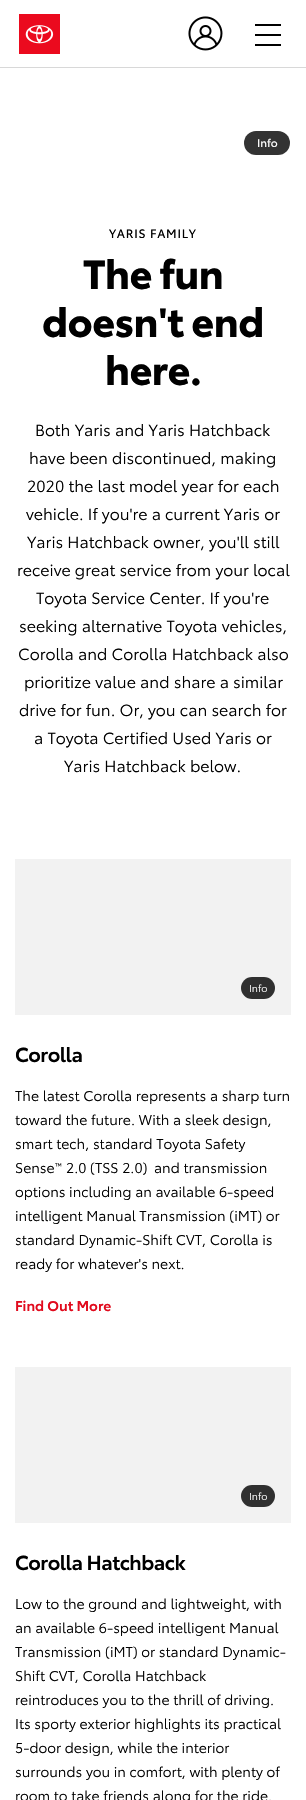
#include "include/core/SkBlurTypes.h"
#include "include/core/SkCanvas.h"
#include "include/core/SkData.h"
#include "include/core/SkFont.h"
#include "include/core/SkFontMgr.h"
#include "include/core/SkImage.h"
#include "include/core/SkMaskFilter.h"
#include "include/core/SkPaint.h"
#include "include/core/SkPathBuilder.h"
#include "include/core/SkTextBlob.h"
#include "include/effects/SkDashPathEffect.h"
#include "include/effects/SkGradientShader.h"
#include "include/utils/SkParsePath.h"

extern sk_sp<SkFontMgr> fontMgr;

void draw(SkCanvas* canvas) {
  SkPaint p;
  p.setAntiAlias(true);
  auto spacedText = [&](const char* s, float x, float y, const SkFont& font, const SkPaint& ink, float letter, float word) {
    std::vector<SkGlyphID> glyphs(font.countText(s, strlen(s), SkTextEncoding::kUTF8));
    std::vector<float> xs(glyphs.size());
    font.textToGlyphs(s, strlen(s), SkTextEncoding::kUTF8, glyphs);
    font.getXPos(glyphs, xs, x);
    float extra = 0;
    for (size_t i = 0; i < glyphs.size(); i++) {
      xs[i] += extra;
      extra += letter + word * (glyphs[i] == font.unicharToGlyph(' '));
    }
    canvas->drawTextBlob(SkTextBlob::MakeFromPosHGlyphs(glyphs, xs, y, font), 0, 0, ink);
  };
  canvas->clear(SK_ColorWHITE);
  p.setColor(SkColorSetRGB(216, 216, 216));
  canvas->drawRect(SkRect::MakeLTRB(0, 67, 306, 68), p);
  canvas->drawImageRect(SkImages::DeferredFromEncodedData(SkData::MakeFromFileName("images/1.png")), SkRect::MakeLTRB(19, 14, 60, 54), SkSamplingOptions());
  canvas->drawImageRect(SkImages::DeferredFromEncodedData(SkData::MakeFromFileName("images/2.png")), SkRect::MakeLTRB(188, 16, 223, 51), SkSamplingOptions());
  p.setColor(SK_ColorBLACK);
  canvas->drawRect(SkRect::MakeLTRB(255, 24, 281, 26), p);
  canvas->drawRect(SkRect::MakeLTRB(255, 34, 281, 36), p);
  canvas->drawRect(SkRect::MakeLTRB(255, 44, 281, 46), p);
  p.setColor(SkColorSetRGB(51, 51, 51));
  canvas->drawRoundRect(SkRect::MakeLTRB(244, 131, 290, 155), 12, 12, p);
  p.setColor(SkColorSetRGB(242, 242, 242));
  canvas->drawRect(SkRect::MakeLTRB(15, 859, 291, 1015), p);
  p.setColor(SkColorSetRGB(48, 48, 48));
  canvas->drawRoundRect(SkRect::MakeLTRB(241, 977, 275, 999), 11, 11, p);
  p.setColor(SkColorSetRGB(242, 242, 242));
  canvas->drawRect(SkRect::MakeLTRB(15, 1367, 291, 1523), p);
  p.setColor(SkColorSetRGB(48, 48, 48));
  canvas->drawRoundRect(SkRect::MakeLTRB(241, 1485, 275, 1507), 11, 11, p);
  SkFont font1(fontMgr->matchFamilyStyle("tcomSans", SkFontStyle::Normal()), 11);
  font1.setSubpixel(true);
  p.setColor(SK_ColorWHITE);
  canvas->drawString("Info", 257, 147, font1, p);
  SkFont font2(fontMgr->matchFamilyStyle("tcomSans", SkFontStyle::Normal()), 12);
  font2.setSubpixel(true);
  p.setColor(SK_ColorBLACK);
  spacedText("YARIS FAMILY", 109, 238, font2, p, 0.75f, 0);
  SkFont font3(fontMgr->matchFamilyStyle("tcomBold", SkFontStyle::Bold()), 40);
  font3.setSubpixel(true);
  spacedText("The fun", 83, 289, font3, p, -0.5f, 0);
  spacedText("doesn't end", 42, 337, font3, p, -0.5f, 0);
  spacedText("here.", 105, 385, font3, p, -0.5f, 0);
  SkFont font4(fontMgr->matchFamilyStyle("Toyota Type", SkFontStyle::Normal()), 16);
  font4.setSubpixel(true);
  canvas->drawString("Both Yaris and Yaris Hatchback", 35, 436, font4, p);
  canvas->drawString("have been discontinued, making", 29, 464, font4, p);
  canvas->drawString("2020 the last model year for each", 27, 492, font4, p);
  canvas->drawString("vehicle. If you're a current Yaris or", 26, 520, font4, p);
  canvas->drawString("Yaris Hatchback owner, you'll still", 27, 548, font4, p);
  canvas->drawString("receive great service from your local", 17, 576, font4, p);
  canvas->drawString("Toyota Service Center. If you're", 36, 604, font4, p);
  canvas->drawString("seeking alternative Toyota vehicles,", 19, 632, font4, p);
  canvas->drawString("Corolla and Corolla Hatchback also", 18, 660, font4, p);
  canvas->drawString("prioritize value and share a similar", 24, 688, font4, p);
  canvas->drawString("drive for fun. Or, you can search for", 19, 716, font4, p);
  canvas->drawString("a Toyota Certified Used Yaris or", 34, 744, font4, p);
  canvas->drawString("Yaris Hatchback below.", 64, 772, font4, p);
  SkFont font5(fontMgr->matchFamilyStyle("Toyota Type", SkFontStyle::Normal()), 10);
  font5.setSubpixel(true);
  p.setColor(SK_ColorWHITE);
  canvas->drawString("Info", 249, 992, font5, p);
  SkFont font6(fontMgr->matchFamilyStyle("Toyota Type", SkFontStyle(600, SkFontStyle::kNormal_Width, SkFontStyle::kUpright_Slant)), 20);
  font6.setSubpixel(true);
  p.setColor(SK_ColorBLACK);
  spacedText("Corolla", 15, 1062, font6, p, -0.5f, 0);
  SkFont font7(fontMgr->matchFamilyStyle("Toyota Type", SkFontStyle::Normal()), 14);
  font7.setSubpixel(true);
  canvas->drawString("The latest Corolla represents a sharp turn", 15, 1101, font7, p);
  canvas->drawString("toward the future. With a sleek design,", 15, 1125, font7, p);
  canvas->drawString("smart tech, standard Toyota Safety", 15, 1149, font7, p);
  canvas->drawString("Sense", 15, 1173, font7, p);
  SkFont font8(fontMgr->matchFamilyStyle("Toyota Type", SkFontStyle::Normal()), 8);
  font8.setSubpixel(true);
  canvas->drawString("™", 55, 1169, font8, p);
  canvas->drawString("2.0 (TSS 2.0)", 66, 1173, font7, p);
  canvas->drawString("and transmission", 154, 1173, font7, p);
  canvas->drawString("options including an available 6-speed", 15, 1197, font7, p);
  canvas->drawString("intelligent Manual Transmission (iMT) or", 15, 1221, font7, p);
  canvas->drawString("standard Dynamic-Shift CVT, Corolla is", 15, 1245, font7, p);
  canvas->drawString("ready for whatever's next.", 15, 1269, font7, p);
  SkFont font9(fontMgr->matchFamilyStyle("Toyota Type", SkFontStyle(600, SkFontStyle::kNormal_Width, SkFontStyle::kUpright_Slant)), 14);
  font9.setSubpixel(true);
  p.setColor(SkColorSetRGB(225, 10, 29));
  canvas->drawString("Find Out More", 15, 1311, font9, p);
  p.setColor(SK_ColorWHITE);
  canvas->drawString("Info", 249, 1500, font5, p);
  p.setColor(SK_ColorBLACK);
  spacedText("Corolla Hatchback", 15, 1570, font6, p, -0.5f, 0);
  canvas->drawString("Low to the ground and lightweight, with", 15, 1609, font7, p);
  canvas->drawString("an available 6-speed intelligent Manual", 15, 1633, font7, p);
  canvas->drawString("Transmission (iMT) or standard Dynamic-", 15, 1657, font7, p);
  canvas->drawString("Shift CVT, Corolla Hatchback", 15, 1681, font7, p);
  canvas->drawString("reintroduces you to the thrill of driving.", 15, 1705, font7, p);
  canvas->drawString("Its sporty exterior highlights its practical", 15, 1729, font7, p);
  canvas->drawString("5-door design, while the interior", 15, 1753, font7, p);
  canvas->drawString("surrounds you in comfort, with plenty of", 15, 1777, font7, p);
  canvas->drawString("room to take friends along for the ride.", 15, 1801, font7, p);
}
